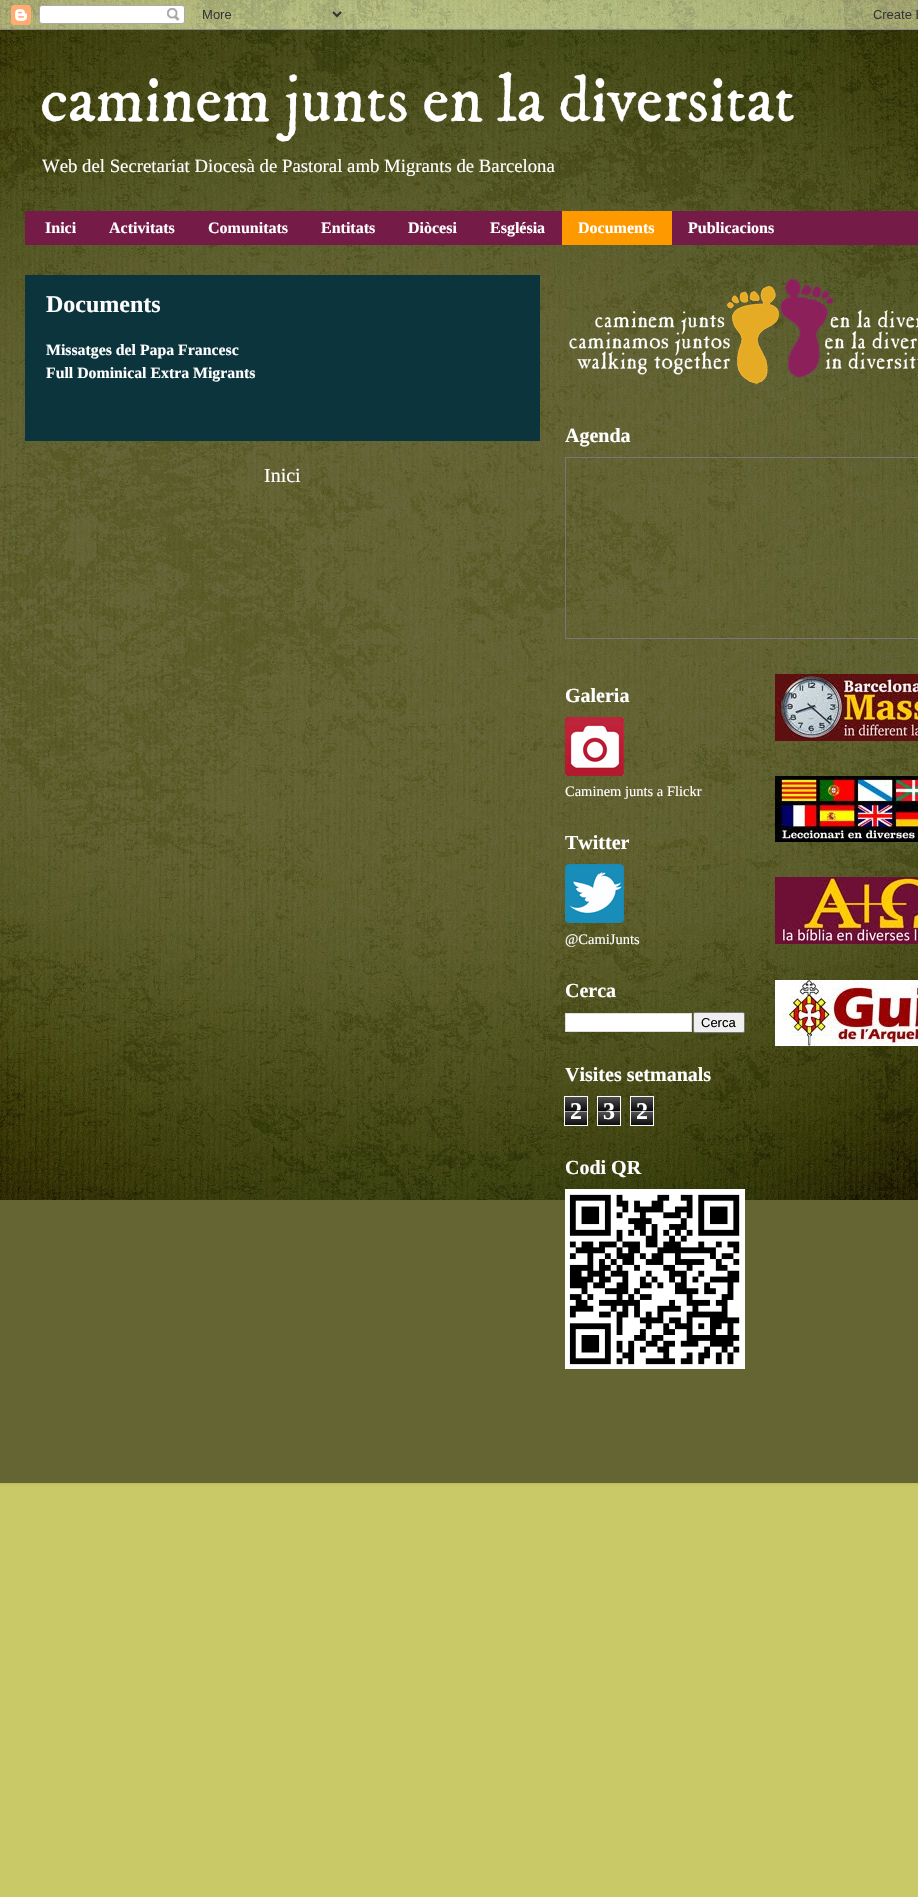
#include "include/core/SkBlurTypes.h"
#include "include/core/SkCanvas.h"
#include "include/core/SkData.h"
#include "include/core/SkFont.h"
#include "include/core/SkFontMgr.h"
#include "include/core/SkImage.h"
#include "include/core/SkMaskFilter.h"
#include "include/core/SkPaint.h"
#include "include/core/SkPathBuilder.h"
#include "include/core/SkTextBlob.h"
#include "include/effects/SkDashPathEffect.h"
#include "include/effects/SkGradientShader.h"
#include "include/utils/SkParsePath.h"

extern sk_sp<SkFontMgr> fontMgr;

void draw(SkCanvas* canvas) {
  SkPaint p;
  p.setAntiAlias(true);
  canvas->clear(SkColorSetRGB(201, 201, 103));
  p.setColor(SkColorSetRGB(101, 101, 52));
  canvas->drawRect(SkRect::MakeLTRB(0, 1200, 918, 1483), p);
  canvas->drawImageRect(SkImages::DeferredFromEncodedData(SkData::MakeFromFileName("images/1.png")), SkRect::MakeLTRB(0, 0, 918, 1200), SkSamplingOptions());
  canvas->save();
  canvas->clipPath(SkPathBuilder(SkPathFillType::kEvenOdd).moveTo(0, 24).lineTo(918, 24).lineTo(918, 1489).lineTo(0, 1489).close().moveTo(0, 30).lineTo(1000, 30).lineTo(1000, 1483).lineTo(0, 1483).close().detach(), true);
  p.setColor(SkColorSetARGB(38, 0, 0, 0));
  p.setMaskFilter(SkMaskFilter::MakeBlur(kNormal_SkBlurStyle, 1.5f));
  canvas->drawRect(SkRect::MakeLTRB(0, 30, 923, 1483), p);
  p.setMaskFilter(nullptr);
  canvas->restore();
  canvas->drawImageRect(SkImages::DeferredFromEncodedData(SkData::MakeFromFileName("images/2.png")), SkRect::MakeLTRB(0, 0, 918, 30), SkSamplingOptions());
  p.setColor(SkColorSetRGB(116, 27, 71));
  canvas->drawRect(SkRect::MakeLTRB(25, 211, 918, 245), p);
  p.setColor(SkColorSetRGB(255, 153, 0));
  canvas->drawRect(SkRect::MakeLTRB(562, 211, 672, 245), p);
  p.setColor(SkColorSetRGB(12, 52, 61));
  canvas->drawRect(SkRect::MakeLTRB(25, 275, 540, 441), p);
  canvas->drawImageRect(SkImages::DeferredFromEncodedData(SkData::MakeFromFileName("images/3.png")), SkRect::MakeLTRB(569, 278, 918, 385), SkSamplingOptions());
  p.setStyle(SkPaint::kStroke_Style);
  p.setStrokeWidth(1);
  p.setColor(SkColorSetRGB(119, 119, 119));
  canvas->drawRect(SkRect::MakeLTRB(565.5f, 457.5f, 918.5f, 638.5f), p);
  canvas->drawImageRect(SkImages::DeferredFromEncodedData(SkData::MakeFromFileName("images/4.png")), SkRect::MakeLTRB(565, 717, 624, 776), SkSamplingOptions());
  canvas->drawImageRect(SkImages::DeferredFromEncodedData(SkData::MakeFromFileName("images/5.png")), SkRect::MakeLTRB(565, 864, 624, 923), SkSamplingOptions());
  p.setStyle(SkPaint::kFill_Style);
  p.setColor(SK_ColorWHITE);
  canvas->drawRect(SkRect::MakeLTRB(565.5f, 1013.5f, 691.5f, 1031.5f), p);
  p.setStyle(SkPaint::kStroke_Style);
  p.setColor(SkColorSetRGB(221, 221, 221));
  canvas->drawRect(SkRect::MakeLTRB(565.5f, 1013.5f, 691.5f, 1031.5f), p);
  p.setStyle(SkPaint::kFill_Style);
  p.setColor(SkColorSetRGB(239, 239, 239));
  canvas->drawRoundRect(SkRect::MakeLTRB(693.5f, 1012.5f, 744.5f, 1032.5f), 1.5f, 1.5f, p);
  p.setStyle(SkPaint::kStroke_Style);
  p.setColor(SkColorSetRGB(118, 118, 118));
  canvas->drawRoundRect(SkRect::MakeLTRB(693.5f, 1012.5f, 744.5f, 1032.5f), 1.5f, 1.5f, p);
  canvas->drawImageRect(SkImages::DeferredFromEncodedData(SkData::MakeFromFileName("images/6.png")), SkRect::MakeLTRB(565, 1097, 587, 1125), SkSamplingOptions());
  p.setColor(SK_ColorWHITE);
  canvas->drawRect(SkRect::MakeLTRB(564.5f, 1096.5f, 587.5f, 1125.5f), p);
  canvas->drawImageRect(SkImages::DeferredFromEncodedData(SkData::MakeFromFileName("images/6.png")), SkRect::MakeLTRB(598, 1097, 620, 1125), SkSamplingOptions());
  canvas->drawRect(SkRect::MakeLTRB(597.5f, 1096.5f, 620.5f, 1125.5f), p);
  canvas->drawImageRect(SkImages::DeferredFromEncodedData(SkData::MakeFromFileName("images/6.png")), SkRect::MakeLTRB(631, 1097, 653, 1125), SkSamplingOptions());
  canvas->drawRect(SkRect::MakeLTRB(630.5f, 1096.5f, 653.5f, 1125.5f), p);
  canvas->drawImageRect(SkImages::DeferredFromEncodedData(SkData::MakeFromFileName("images/7.png")), SkRect::MakeLTRB(565, 1189, 745, 1369), SkSamplingOptions());
  canvas->drawImageRect(SkImages::DeferredFromEncodedData(SkData::MakeFromFileName("images/8.png")), SkRect::MakeLTRB(775, 674, 918, 741), SkSamplingOptions());
  canvas->drawImageRect(SkImages::DeferredFromEncodedData(SkData::MakeFromFileName("images/9.png")), SkRect::MakeLTRB(775, 776, 918, 842), SkSamplingOptions());
  canvas->drawImageRect(SkImages::DeferredFromEncodedData(SkData::MakeFromFileName("images/10.png")), SkRect::MakeLTRB(775, 877, 918, 944), SkSamplingOptions());
  canvas->drawImageRect(SkImages::DeferredFromEncodedData(SkData::MakeFromFileName("images/11.png")), SkRect::MakeLTRB(775, 980, 918, 1046), SkSamplingOptions());
  SkFont font1(fontMgr->matchFamilyStyle("IM FELL DW Pica", SkFontStyle::Normal()), 65);
  font1.setSubpixel(true);
  p.setStyle(SkPaint::kFill_Style);
  canvas->drawString("caminem junts en la diversitat", 40, 121, font1, p);
  SkFont font2(fontMgr->matchFamilyStyle("Liberation Serif", SkFontStyle::Normal()), 18.75f);
  font2.setSubpixel(true);
  canvas->drawString("Web del Secretariat Diocesà de Pastoral amb Migrants de Barcelona", 42, 172, font2, p);
  SkFont font3(fontMgr->matchFamilyStyle("Liberation Serif", SkFontStyle::Bold()), 16);
  font3.setSubpixel(true);
  canvas->drawString("Inici", 45, 233, font3, p);
  canvas->drawString("Activitats", 109, 233, font3, p);
  canvas->drawString("Comunitats", 208, 233, font3, p);
  canvas->drawString("Entitats", 321, 233, font3, p);
  canvas->drawString("Diòcesi", 408, 233, font3, p);
  canvas->drawString("Església", 490, 233, font3, p);
  canvas->drawString("Documents", 578, 233, font3, p);
  canvas->drawString("Publicacions", 688, 233, font3, p);
  SkFont font4(fontMgr->matchFamilyStyle("Liberation Serif", SkFontStyle::Bold()), 24);
  font4.setSubpixel(true);
  canvas->drawString("Documents", 46, 312, font4, p);
  SkFont font5(fontMgr->matchFamilyStyle("Liberation Serif", SkFontStyle::Bold()), 15.8f);
  font5.setSubpixel(true);
  canvas->drawString("Missatges del Papa Francesc", 46, 355, font5, p);
  canvas->drawString("Full Dominical Extra Migrants", 46, 378, font5, p);
  SkFont font6(fontMgr->matchFamilyStyle("Liberation Serif", SkFontStyle::Normal()), 20);
  font6.setSubpixel(true);
  canvas->drawString("Inici", 264, 482, font6, p);
  SkFont font7(fontMgr->matchFamilyStyle("Liberation Serif", SkFontStyle::Bold()), 20);
  font7.setSubpixel(true);
  canvas->drawString("Agenda", 565, 442, font7, p);
  canvas->drawString("Galeria", 565, 702, font7, p);
  SkFont font8(fontMgr->matchFamilyStyle("Liberation Serif", SkFontStyle::Normal()), 14.5f);
  font8.setSubpixel(true);
  canvas->drawString("Caminem junts a Flickr", 565, 796, font8, p);
  canvas->drawString("Twitter", 565, 849, font7, p);
  canvas->drawString("@CamiJunts", 565, 944, font8, p);
  canvas->drawString("Cerca", 565, 997, font7, p);
  SkFont font9(fontMgr->matchFamilyStyle("Liberation Sans", SkFontStyle::Normal()), 13);
  font9.setSubpixel(true);
  p.setColor(SK_ColorBLACK);
  canvas->drawString("Cerca", 701, 1027, font9, p);
  p.setColor(SK_ColorWHITE);
  canvas->drawString("Visites setmanals", 565, 1081, font7, p);
  canvas->drawString("2", 570, 1119, font4, p);
  p.setColor(SkColorSetARGB(166, 0, 0, 0));
  canvas->drawRect(SkRect::MakeLTRB(565, 1110, 587, 1111), p);
  p.setColor(SkColorSetARGB(166, 255, 255, 255));
  canvas->drawRect(SkRect::MakeLTRB(565, 1111, 587, 1112), p);
  p.setColor(SK_ColorWHITE);
  canvas->drawString("3", 603, 1119, font4, p);
  p.setColor(SkColorSetARGB(166, 0, 0, 0));
  canvas->drawRect(SkRect::MakeLTRB(598, 1110, 620, 1111), p);
  p.setColor(SkColorSetARGB(166, 255, 255, 255));
  canvas->drawRect(SkRect::MakeLTRB(598, 1111, 620, 1112), p);
  p.setColor(SK_ColorWHITE);
  canvas->drawString("2", 636, 1119, font4, p);
  p.setColor(SkColorSetARGB(166, 0, 0, 0));
  canvas->drawRect(SkRect::MakeLTRB(631, 1110, 653, 1111), p);
  p.setColor(SkColorSetARGB(166, 255, 255, 255));
  canvas->drawRect(SkRect::MakeLTRB(631, 1111, 653, 1112), p);
  p.setColor(SK_ColorWHITE);
  canvas->drawString("Codi QR", 565, 1174, font7, p);
}
